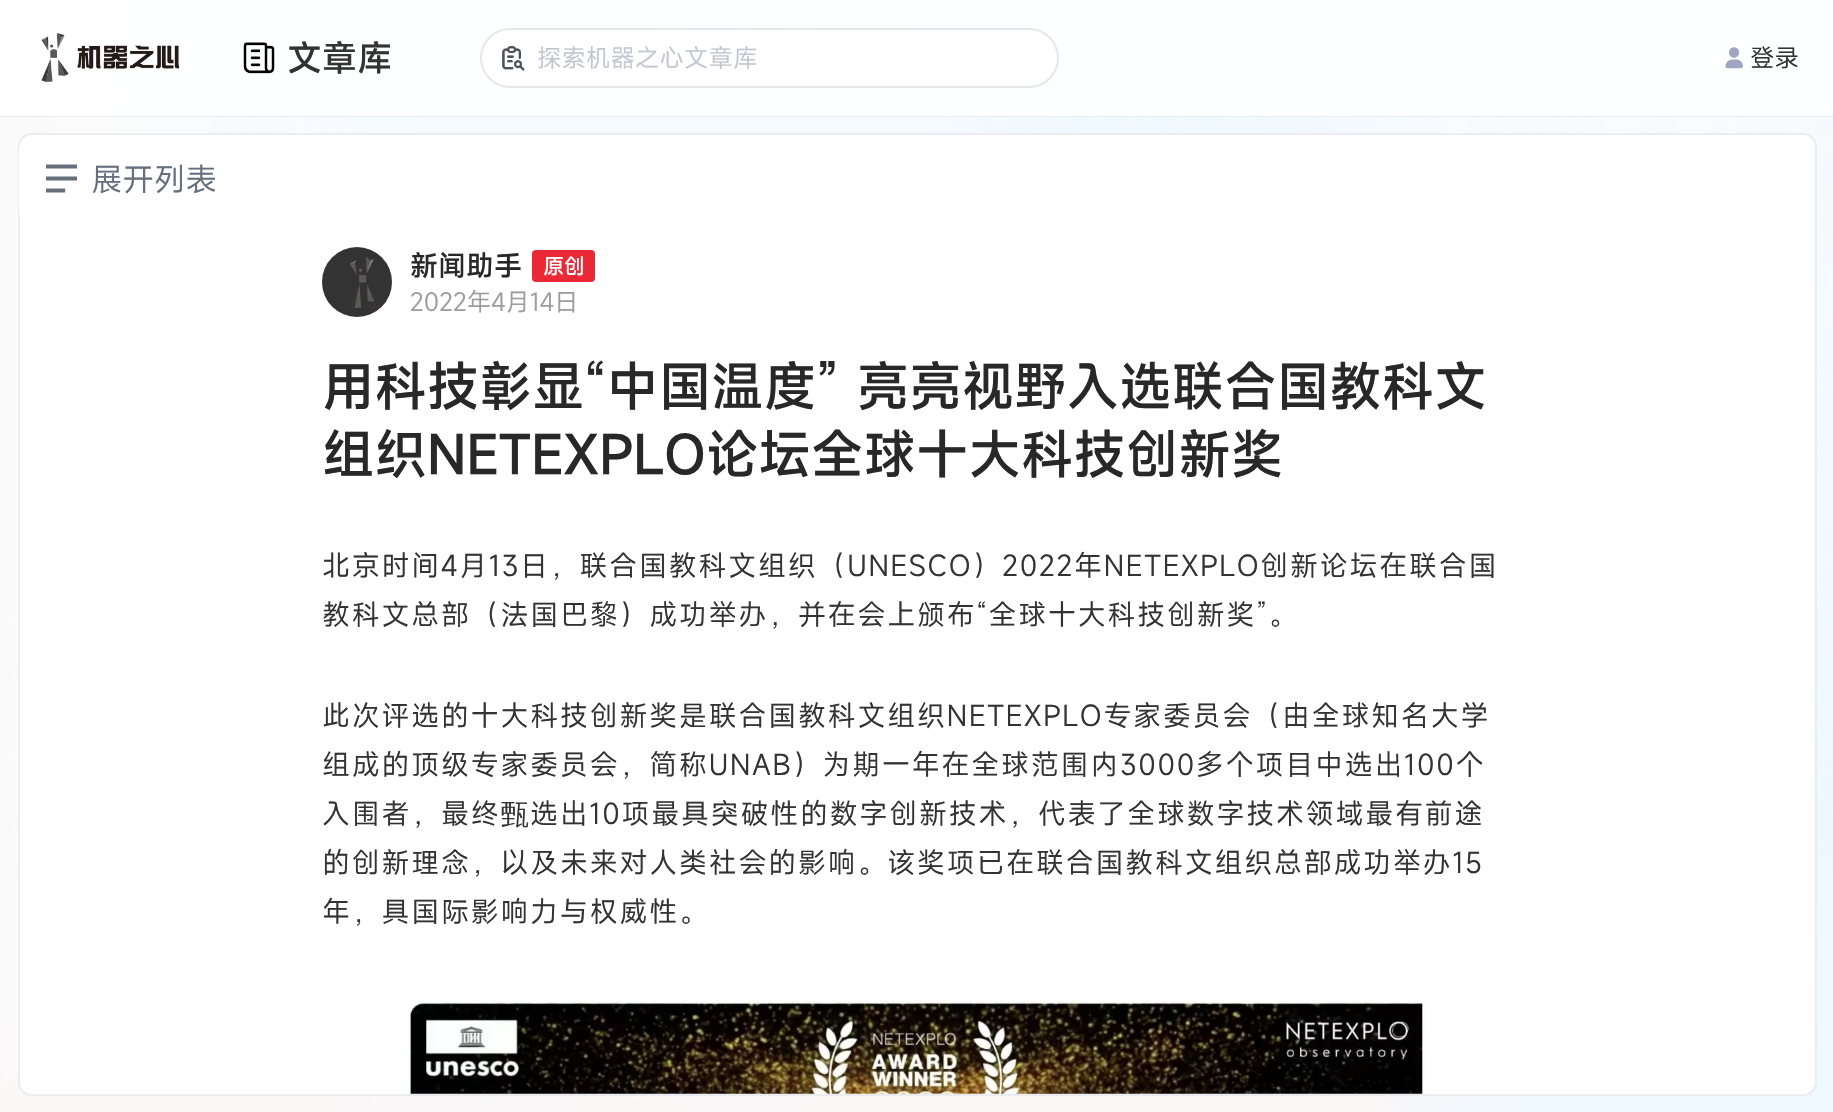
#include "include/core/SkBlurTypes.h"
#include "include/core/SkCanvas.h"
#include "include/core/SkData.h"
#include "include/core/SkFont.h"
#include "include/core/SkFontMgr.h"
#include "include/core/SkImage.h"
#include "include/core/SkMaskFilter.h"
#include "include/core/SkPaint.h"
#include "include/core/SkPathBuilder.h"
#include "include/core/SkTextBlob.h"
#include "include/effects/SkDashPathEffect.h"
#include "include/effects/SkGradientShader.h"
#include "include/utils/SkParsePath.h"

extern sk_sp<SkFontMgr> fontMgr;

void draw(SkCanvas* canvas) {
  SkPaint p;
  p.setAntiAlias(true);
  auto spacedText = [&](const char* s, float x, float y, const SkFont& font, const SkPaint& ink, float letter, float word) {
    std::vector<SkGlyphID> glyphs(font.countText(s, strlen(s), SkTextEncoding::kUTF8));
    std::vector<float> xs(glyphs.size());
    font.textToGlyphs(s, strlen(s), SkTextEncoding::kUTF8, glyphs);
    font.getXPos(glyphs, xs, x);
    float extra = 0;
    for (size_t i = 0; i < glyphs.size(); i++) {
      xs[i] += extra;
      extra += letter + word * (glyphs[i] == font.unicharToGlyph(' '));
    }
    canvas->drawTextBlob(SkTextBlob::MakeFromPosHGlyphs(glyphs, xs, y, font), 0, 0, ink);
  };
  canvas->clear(SK_ColorWHITE);
  canvas->drawImageRect(SkImages::DeferredFromEncodedData(SkData::MakeFromFileName("images/1.png")), SkRect::MakeLTRB(0, 0, 1833, 1112), SkSamplingOptions());
  p.setColor(SkColorSetRGB(235, 236, 241));
  canvas->drawRect(SkRect::MakeLTRB(0, 116, 1833, 117), p);
  p.setColor(SkColorSetARGB(204, 255, 255, 255));
  canvas->drawRect(SkRect::MakeLTRB(0, 0, 1833, 116), p);
  canvas->drawImageRect(SkImages::DeferredFromEncodedData(SkData::MakeFromFileName("images/2.png")), SkRect::MakeLTRB(41, 33, 180, 83), SkSamplingOptions());
  canvas->drawImageRect(SkImages::DeferredFromEncodedData(SkData::MakeFromFileName("images/3.png")), SkRect::MakeLTRB(243, 42, 275, 74), SkSamplingOptions());
  p.setColor(SK_ColorWHITE);
  canvas->drawRoundRect(SkRect::MakeLTRB(481, 29, 1058, 87), 29, 29, p);
  p.setStyle(SkPaint::kStroke_Style);
  p.setStrokeWidth(2);
  p.setColor(SkColorSetRGB(230, 231, 237));
  canvas->drawRoundRect(SkRect::MakeLTRB(481, 29, 1058, 87), 29, 29, p);
  canvas->drawImageRect(SkImages::DeferredFromEncodedData(SkData::MakeFromFileName("images/4.png")), SkRect::MakeLTRB(502, 46, 525, 71), SkSamplingOptions());
  canvas->drawImageRect(SkImages::DeferredFromEncodedData(SkData::MakeFromFileName("images/5.png")), SkRect::MakeLTRB(1725, 47, 1743, 69), SkSamplingOptions());
  p.setStyle(SkPaint::kFill_Style);
  p.setColor(SK_ColorWHITE);
  canvas->drawRoundRect(SkRect::MakeLTRB(19, 134, 1816, 1095), 13, 13, p);
  p.setStyle(SkPaint::kStroke_Style);
  p.setColor(SkColorSetRGB(235, 236, 241));
  canvas->drawRoundRect(SkRect::MakeLTRB(19, 134, 1816, 1095), 13, 13, p);
  p.setStyle(SkPaint::kFill_Style);
  p.setColor(SK_ColorWHITE);
  canvas->drawPath(SkPathBuilder().moveTo(33, 135).lineTo(247, 135).lineTo(247, 228).lineTo(33, 228).cubicTo(25.5f, 228, 19, 221.5f, 19, 214).lineTo(19, 149).cubicTo(19, 141.5f, 25.5f, 135, 33, 135).close().detach(), p);
  canvas->drawImageRect(SkImages::DeferredFromEncodedData(SkData::MakeFromFileName("images/6.png")), SkRect::MakeLTRB(46, 164, 77, 193), SkSamplingOptions());
  p.setColor(SkColorSetRGB(51, 51, 51));
  canvas->drawCircle(357, 282, 35, p);
  canvas->drawImageRect(SkImages::DeferredFromEncodedData(SkData::MakeFromFileName("images/7.png")), SkRect::MakeLTRB(350, 256, 382, 309), SkSamplingOptions());
  p.setColor(SkColorSetRGB(235, 40, 53));
  canvas->drawRoundRect(SkRect::MakeLTRB(532, 250, 595, 282), 4, 4, p);
  canvas->drawImageRect(SkImages::DeferredFromEncodedData(SkData::MakeFromFileName("images/8.png")), SkRect::MakeLTRB(408, 1000, 1427, 1094), SkSamplingOptions());
  SkFont font1(fontMgr->matchFamilyStyle("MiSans", SkFontStyle(500, SkFontStyle::kNormal_Width, SkFontStyle::kUpright_Slant)), 35);
  font1.setSubpixel(true);
  p.setColor(SkColorSetRGB(51, 51, 51));
  canvas->drawString("文章库", 287, 71, font1, p);
  SkFont font2(fontMgr->matchFamilyStyle("MiSans", SkFontStyle::Normal()), 24.5f);
  font2.setSubpixel(true);
  p.setColor(SkColorSetRGB(193, 199, 208));
  canvas->drawString("探索机器之心文章库", 537, 67, font2, p);
  p.setColor(SkColorSetRGB(51, 51, 51));
  canvas->drawString("登录", 1750, 67, font2, p);
  SkFont font3(fontMgr->matchFamilyStyle("MiSans", SkFontStyle::Normal()), 31.5f);
  font3.setSubpixel(true);
  p.setColor(SkColorSetRGB(102, 111, 125));
  canvas->drawString("展开列表", 91, 191, font3, p);
  SkFont font4(fontMgr->matchFamilyStyle("MiSans", SkFontStyle(500, SkFontStyle::kNormal_Width, SkFontStyle::kUpright_Slant)), 28);
  font4.setSubpixel(true);
  p.setColor(SkColorSetRGB(40, 40, 40));
  canvas->drawString("新闻助手", 410, 276, font4, p);
  SkFont font5(fontMgr->matchFamilyStyle("MiSans", SkFontStyle(500, SkFontStyle::kNormal_Width, SkFontStyle::kUpright_Slant)), 21);
  font5.setSubpixel(true);
  p.setColor(SkColorSetRGB(246, 246, 246));
  canvas->drawString("原创", 543, 274, font5, p);
  p.setColor(SkColorSetRGB(157, 157, 157));
  canvas->drawString("2022年4月14日", 410, 311, font2, p);
  SkFont font6(fontMgr->matchFamilyStyle("MiSans", SkFontStyle(500, SkFontStyle::kNormal_Width, SkFontStyle::kUpright_Slant)), 52.5f);
  font6.setSubpixel(true);
  p.setColor(SkColorSetRGB(40, 40, 40));
  canvas->drawString("用科技彰显“中国温度” 亮亮视野入选联合国教科文", 322, 406, font6, p);
  canvas->drawString("组织NETEXPLO论坛全球十大科技创新奖", 322, 474, font6, p);
  SkFont font7(fontMgr->matchFamilyStyle("MiSans", SkFontStyle::Normal()), 28);
  font7.setSubpixel(true);
  p.setColor(SkColorSetRGB(51, 51, 51));
  spacedText("北京时间4月13日，联合国教科文组织（UNESCO）2022年NETEXPLO创新论坛在联合国", 322, 576, font7, p, 1.75f, 0);
  spacedText("教科文总部（法国巴黎）成功举办，并在会上颁布“全球十大科技创新奖”。", 322, 625, font7, p, 1.75f, 0);
  spacedText("此次评选的十大科技创新奖是联合国教科文组织NETEXPLO专家委员会（由全球知名大学", 322, 726, font7, p, 1.75f, 0);
  spacedText("组成的顶级专家委员会，简称UNAB）为期一年在全球范围内3000多个项目中选出100个", 322, 775, font7, p, 1.75f, 0);
  spacedText("入围者，最终", 322, 824, font7, p, 1.75f, 0);
  SkFont font8(fontMgr->matchFamilyStyle("WenQuanYi Zen Hei", SkFontStyle(500, SkFontStyle::kNormal_Width, SkFontStyle::kUpright_Slant)), 28);
  font8.setSubpixel(true);
  spacedText("甄", 501, 824, font8, p, 1.75f, 0);
  spacedText("选出10项最具突破性的数字创新技术，代表了全球数字技术领域最有前途", 530, 824, font7, p, 1.75f, 0);
  spacedText("的创新理念，以及未来对人类社会的影响。该奖项已在联合国教科文组织总部成功举办15", 322, 873, font7, p, 1.75f, 0);
  spacedText("年，具国际影响力与权威性。", 322, 922, font7, p, 1.75f, 0);
}
